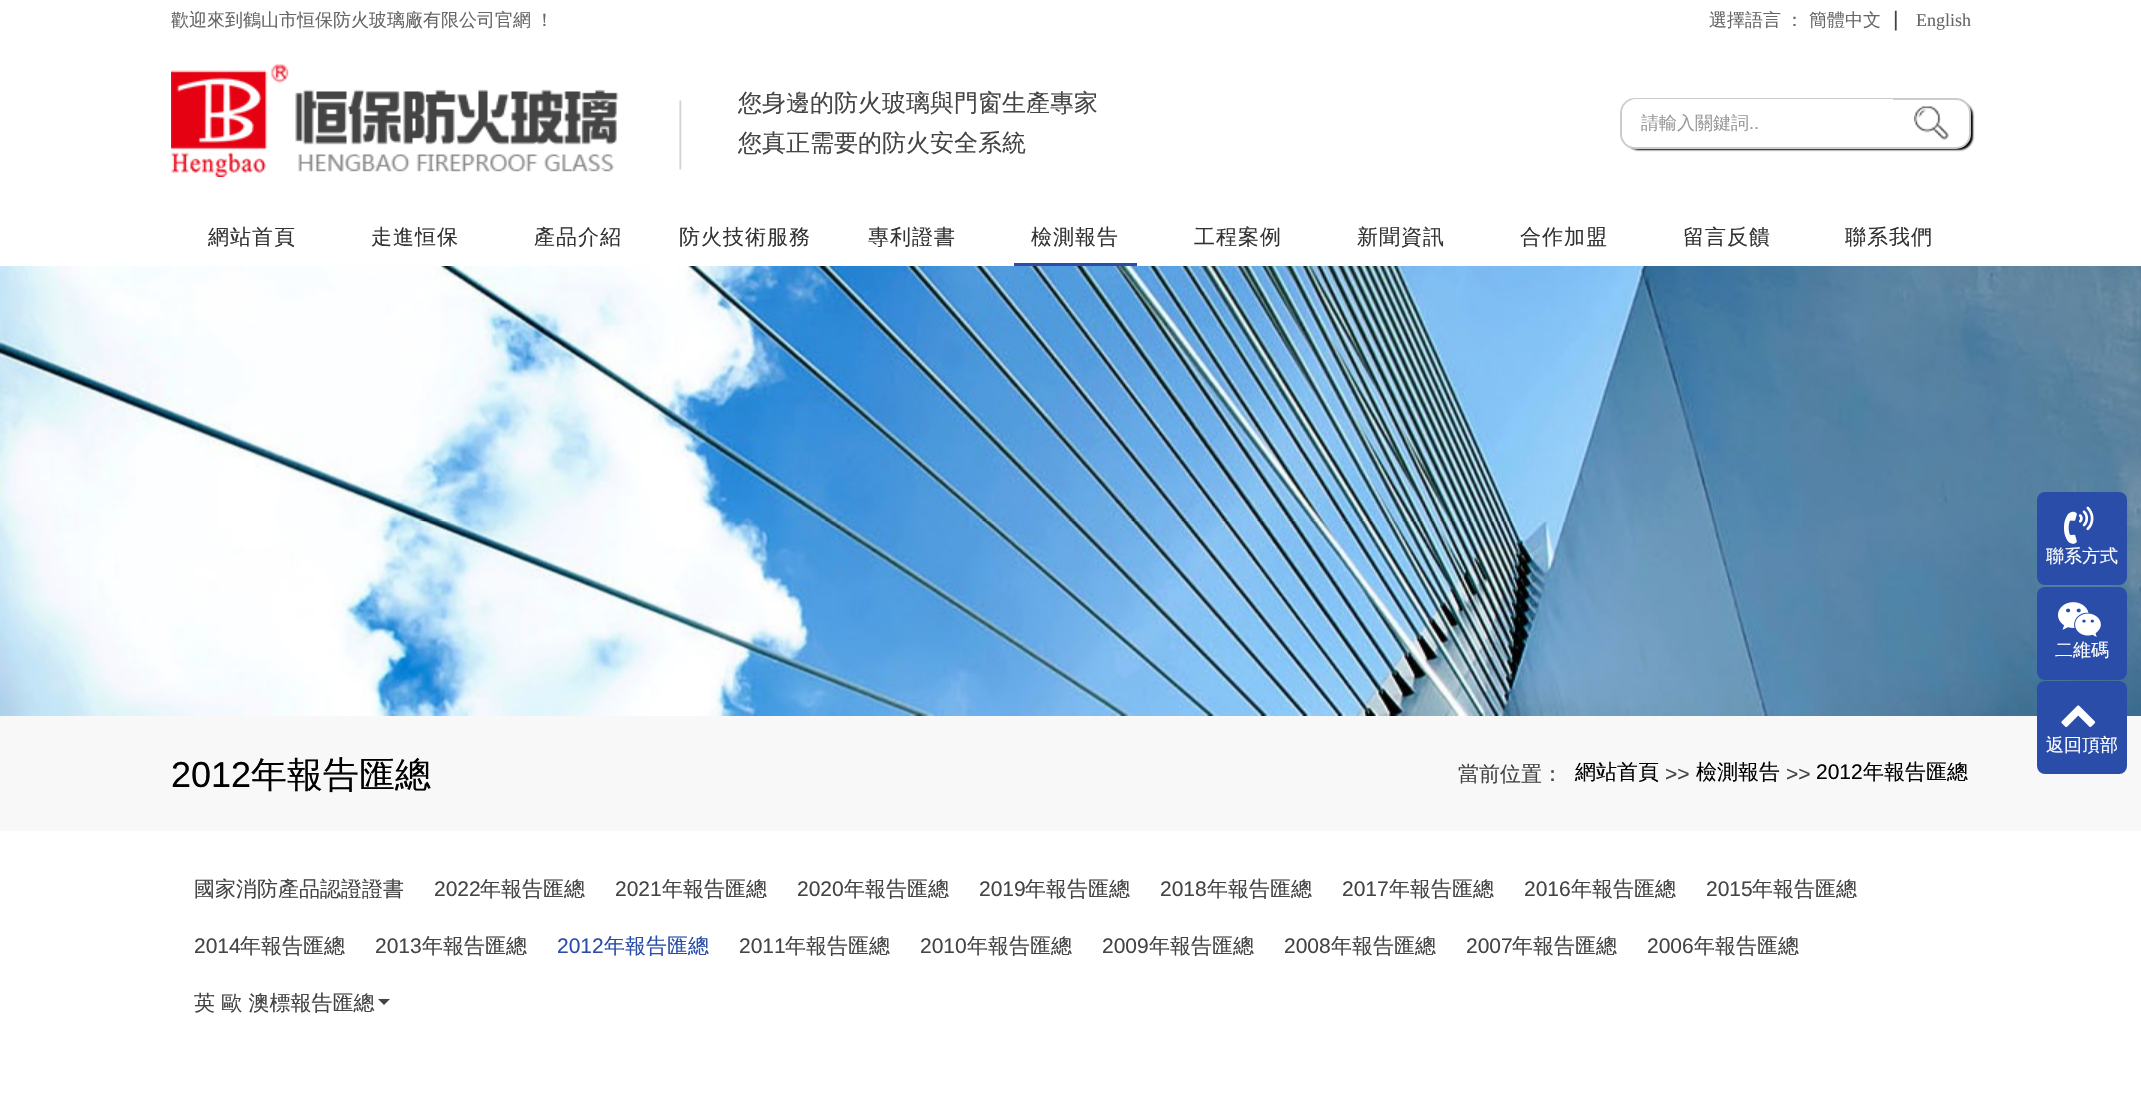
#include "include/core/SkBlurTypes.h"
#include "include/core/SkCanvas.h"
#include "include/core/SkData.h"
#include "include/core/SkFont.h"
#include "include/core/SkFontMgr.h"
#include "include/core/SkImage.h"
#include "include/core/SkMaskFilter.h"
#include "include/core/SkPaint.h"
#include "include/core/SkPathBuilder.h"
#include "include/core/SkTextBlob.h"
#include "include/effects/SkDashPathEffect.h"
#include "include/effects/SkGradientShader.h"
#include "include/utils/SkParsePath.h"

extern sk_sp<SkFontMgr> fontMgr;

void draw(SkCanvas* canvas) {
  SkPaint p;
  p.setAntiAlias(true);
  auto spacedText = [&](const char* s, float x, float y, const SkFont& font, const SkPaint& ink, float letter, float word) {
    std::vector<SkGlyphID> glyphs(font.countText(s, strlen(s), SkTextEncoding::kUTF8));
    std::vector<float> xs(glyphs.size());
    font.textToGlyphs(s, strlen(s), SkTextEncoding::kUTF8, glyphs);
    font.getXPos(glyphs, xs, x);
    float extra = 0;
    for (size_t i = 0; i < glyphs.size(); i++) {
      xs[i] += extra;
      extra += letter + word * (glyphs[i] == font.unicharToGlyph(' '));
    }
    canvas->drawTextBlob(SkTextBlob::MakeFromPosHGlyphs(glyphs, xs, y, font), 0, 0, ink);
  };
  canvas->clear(SK_ColorWHITE);
  canvas->drawImageRect(SkImages::DeferredFromEncodedData(SkData::MakeFromFileName("images/1.png")), SkRect::MakeLTRB(171, 64, 682, 177), SkSamplingOptions());
  p.setColor(SK_ColorBLACK);
  p.setMaskFilter(SkMaskFilter::MakeBlur(kNormal_SkBlurStyle, 1));
  canvas->drawRoundRect(SkRect::MakeLTRB(1625, 102, 1973, 150), 14, 14, p);
  p.setMaskFilter(nullptr);
  p.setColor(SK_ColorWHITE);
  canvas->drawRoundRect(SkRect::MakeLTRB(1621, 99, 1970, 148), 14, 14, p);
  p.setStyle(SkPaint::kStroke_Style);
  p.setStrokeWidth(2);
  p.setColor(SkColorSetRGB(204, 204, 204));
  canvas->drawRoundRect(SkRect::MakeLTRB(1621, 99, 1970, 148), 14, 14, p);
  p.setStyle(SkPaint::kFill_Style);
  p.setColor(SK_ColorWHITE);
  canvas->drawPath(SkPathBuilder().moveTo(1636, 99).lineTo(1893, 99).lineTo(1893, 147).lineTo(1636, 147).cubicTo(1628.5f, 147, 1622, 140.5f, 1622, 133).lineTo(1622, 113).cubicTo(1622, 105.5f, 1628.5f, 99, 1636, 99).close().detach(), p);
  canvas->drawImageRect(SkImages::DeferredFromEncodedData(SkData::MakeFromFileName("images/2.png")), SkRect::MakeLTRB(1914, 106, 1949, 140), SkSamplingOptions());
  p.setColor(SkColorSetRGB(41, 77, 168));
  canvas->drawRect(SkRect::MakeLTRB(1014, 263, 1137, 266), p);
  canvas->drawImageRect(SkImages::DeferredFromEncodedData(SkData::MakeFromFileName("images/3.png")), SkRect::MakeLTRB(0, 266, 2141, 716), SkSamplingOptions());
  p.setColor(SkColorSetRGB(248, 248, 248));
  canvas->drawRect(SkRect::MakeLTRB(0, 716, 2141, 831), p);
  p.setColor(SkColorSetRGB(68, 68, 68));
  canvas->drawPath(SkPathBuilder().moveTo(378, 999).lineTo(390, 999).lineTo(384, 1005).close().detach(), p);
  p.setColor(SkColorSetRGB(41, 77, 168));
  canvas->drawRoundRect(SkRect::MakeLTRB(2037, 492, 2127, 585), 8, 8, p);
  canvas->drawImageRect(SkImages::DeferredFromEncodedData(SkData::MakeFromFileName("images/4.png")), SkRect::MakeLTRB(2064, 506, 2094, 544), SkSamplingOptions());
  canvas->drawRoundRect(SkRect::MakeLTRB(2037, 587, 2127, 680), 8, 8, p);
  canvas->drawImageRect(SkImages::DeferredFromEncodedData(SkData::MakeFromFileName("images/5.png")), SkRect::MakeLTRB(2058, 602, 2101, 637), SkSamplingOptions());
  canvas->drawRoundRect(SkRect::MakeLTRB(2037, 681, 2127, 774), 8, 8, p);
  canvas->drawImageRect(SkImages::DeferredFromEncodedData(SkData::MakeFromFileName("images/6.png")), SkRect::MakeLTRB(2061, 705, 2096, 727), SkSamplingOptions());
  SkFont font1(fontMgr->matchFamilyStyle("WenQuanYi Zen Hei", SkFontStyle(500, SkFontStyle::kNormal_Width, SkFontStyle::kUpright_Slant)), 18);
  font1.setSubpixel(true);
  p.setColor(SkColorSetRGB(102, 102, 102));
  spacedText("歡迎來到鶴山市恒保防火玻璃廠有限公司官網 ！", 171, 26, font1, p, 0, -1);
  spacedText("選擇語言 ：", 1709, 26, font1, p, 0, -1);
  canvas->drawString("簡體中文", 1809, 26, font1, p);
  SkFont font2(fontMgr->matchFamilyStyle("Liberation Sans", SkFontStyle::Normal()), 21);
  font2.setSubpixel(true);
  p.setColor(SkColorSetRGB(68, 68, 68));
  canvas->drawString("|", 1893, 26, font2, p);
  SkFont font3(fontMgr->matchFamilyStyle("Liberation Serif", SkFontStyle::Normal()), 18);
  font3.setSubpixel(true);
  p.setColor(SkColorSetRGB(102, 102, 102));
  canvas->drawString("English", 1916, 26, font3, p);
  SkFont font4(fontMgr->matchFamilyStyle("WenQuanYi Zen Hei", SkFontStyle(500, SkFontStyle::kNormal_Width, SkFontStyle::kUpright_Slant)), 24);
  font4.setSubpixel(true);
  p.setColor(SkColorSetRGB(68, 68, 68));
  canvas->drawString("您身邊的防火玻璃與門窗生產專家", 738, 111, font4, p);
  canvas->drawString("您真正需要的防火安全系統", 738, 151, font4, p);
  p.setColor(SkColorSetRGB(153, 153, 153));
  canvas->drawString("請輸入關鍵詞", 1641, 129, font1, p);
  SkFont font5(fontMgr->matchFamilyStyle("Liberation Sans", SkFontStyle::Normal()), 18);
  font5.setSubpixel(true);
  canvas->drawString("..", 1749, 129, font5, p);
  SkFont font6(fontMgr->matchFamilyStyle("WenQuanYi Zen Hei", SkFontStyle(500, SkFontStyle::kNormal_Width, SkFontStyle::kUpright_Slant)), 21);
  font6.setSubpixel(true);
  p.setColor(SkColorSetRGB(51, 51, 51));
  spacedText("網站首頁", 208, 244, font6, p, 1, 0);
  spacedText("走進恒保", 371, 244, font6, p, 1, 0);
  spacedText("產品介紹", 534, 244, font6, p, 1, 0);
  spacedText("防火技術服務", 679, 244, font6, p, 1, 0);
  spacedText("專利證書", 868, 244, font6, p, 1, 0);
  spacedText("檢測報告", 1031, 244, font6, p, 1, 0);
  spacedText("工程案例", 1194, 244, font6, p, 1, 0);
  spacedText("新聞資訊", 1357, 244, font6, p, 1, 0);
  spacedText("合作加盟", 1520, 244, font6, p, 1, 0);
  spacedText("留言反饋", 1683, 244, font6, p, 1, 0);
  spacedText("聯系我們", 1845, 244, font6, p, 1, 0);
  SkFont font7(fontMgr->matchFamilyStyle("Liberation Sans", SkFontStyle::Normal()), 36);
  font7.setSubpixel(true);
  p.setColor(SK_ColorBLACK);
  canvas->drawString("2012", 171, 787, font7, p);
  SkFont font8(fontMgr->matchFamilyStyle("WenQuanYi Zen Hei", SkFontStyle(500, SkFontStyle::kNormal_Width, SkFontStyle::kUpright_Slant)), 36);
  font8.setSubpixel(true);
  canvas->drawString("年報告匯總", 251, 787, font8, p);
  p.setColor(SkColorSetRGB(68, 68, 68));
  canvas->drawString("當前位置：", 1458, 781, font6, p);
  p.setColor(SK_ColorBLACK);
  canvas->drawString("網站首頁", 1575, 779, font6, p);
  p.setColor(SkColorSetRGB(68, 68, 68));
  canvas->drawString(">>", 1665, 781, font2, p);
  p.setColor(SK_ColorBLACK);
  canvas->drawString("檢測報告", 1696, 779, font6, p);
  p.setColor(SkColorSetRGB(68, 68, 68));
  canvas->drawString(">>", 1786, 781, font2, p);
  p.setColor(SK_ColorBLACK);
  canvas->drawString("2012", 1816, 779, font2, p);
  canvas->drawString("年報告匯總", 1863, 779, font6, p);
  p.setColor(SkColorSetRGB(68, 68, 68));
  canvas->drawString("國家消防產品認證證書", 194, 896, font6, p);
  canvas->drawString("2022", 434, 896, font2, p);
  canvas->drawString("年報告匯總", 480, 896, font6, p);
  canvas->drawString("2021", 615, 896, font2, p);
  canvas->drawString("年報告匯總", 662, 896, font6, p);
  canvas->drawString("2020", 797, 896, font2, p);
  canvas->drawString("年報告匯總", 844, 896, font6, p);
  canvas->drawString("2019", 979, 896, font2, p);
  canvas->drawString("年報告匯總", 1025, 896, font6, p);
  canvas->drawString("2018", 1160, 896, font2, p);
  canvas->drawString("年報告匯總", 1207, 896, font6, p);
  canvas->drawString("2017", 1342, 896, font2, p);
  canvas->drawString("年報告匯總", 1389, 896, font6, p);
  canvas->drawString("2016", 1524, 896, font2, p);
  canvas->drawString("年報告匯總", 1571, 896, font6, p);
  canvas->drawString("2015", 1706, 896, font2, p);
  canvas->drawString("年報告匯總", 1752, 896, font6, p);
  canvas->drawString("2014", 194, 953, font2, p);
  canvas->drawString("年報告匯總", 240, 953, font6, p);
  canvas->drawString("2013", 375, 953, font2, p);
  canvas->drawString("年報告匯總", 422, 953, font6, p);
  p.setColor(SkColorSetRGB(41, 77, 168));
  canvas->drawString("2012", 557, 953, font2, p);
  canvas->drawString("年報告匯總", 604, 953, font6, p);
  p.setColor(SkColorSetRGB(68, 68, 68));
  canvas->drawString("2011", 739, 953, font2, p);
  canvas->drawString("年報告匯總", 785, 953, font6, p);
  canvas->drawString("2010", 920, 953, font2, p);
  canvas->drawString("年報告匯總", 967, 953, font6, p);
  canvas->drawString("2009", 1102, 953, font2, p);
  canvas->drawString("年報告匯總", 1149, 953, font6, p);
  canvas->drawString("2008", 1284, 953, font2, p);
  canvas->drawString("年報告匯總", 1331, 953, font6, p);
  canvas->drawString("2007", 1466, 953, font2, p);
  canvas->drawString("年報告匯總", 1512, 953, font6, p);
  canvas->drawString("2006", 1647, 953, font2, p);
  canvas->drawString("年報告匯總", 1694, 953, font6, p);
  canvas->drawString("英 歐 澳標報告匯總", 194, 1010, font6, p);
  p.setColor(SK_ColorWHITE);
  canvas->drawString("聯系方式", 2046, 562, font1, p);
  canvas->drawString("二維碼", 2055, 656, font1, p);
  canvas->drawString("返回頂部", 2046, 751, font1, p);
}
